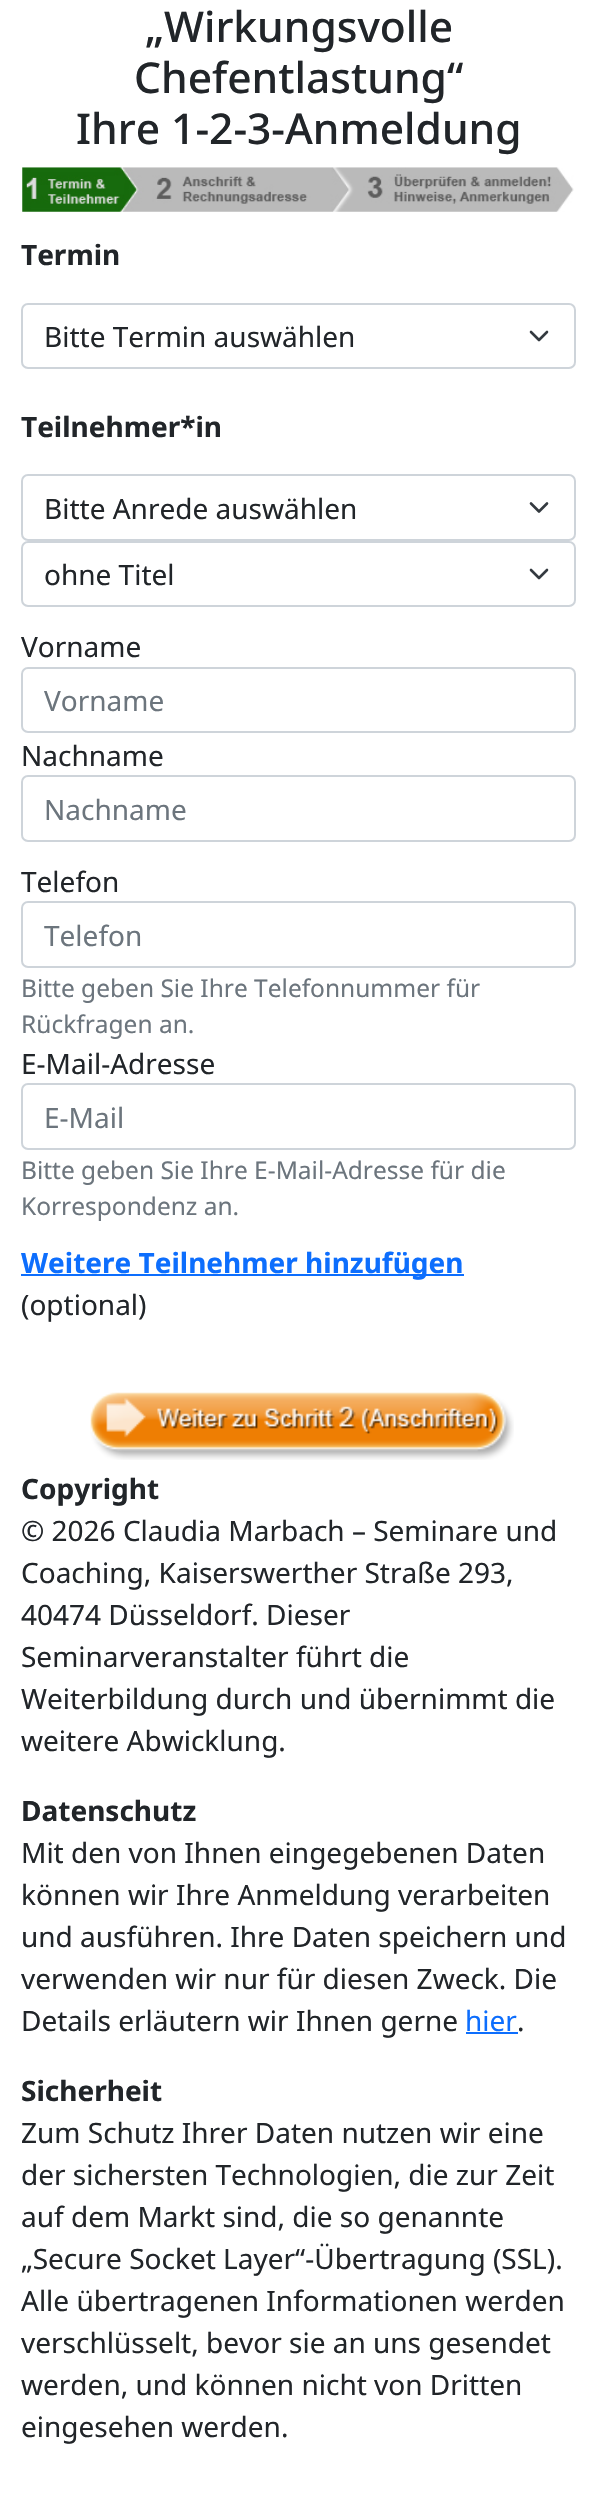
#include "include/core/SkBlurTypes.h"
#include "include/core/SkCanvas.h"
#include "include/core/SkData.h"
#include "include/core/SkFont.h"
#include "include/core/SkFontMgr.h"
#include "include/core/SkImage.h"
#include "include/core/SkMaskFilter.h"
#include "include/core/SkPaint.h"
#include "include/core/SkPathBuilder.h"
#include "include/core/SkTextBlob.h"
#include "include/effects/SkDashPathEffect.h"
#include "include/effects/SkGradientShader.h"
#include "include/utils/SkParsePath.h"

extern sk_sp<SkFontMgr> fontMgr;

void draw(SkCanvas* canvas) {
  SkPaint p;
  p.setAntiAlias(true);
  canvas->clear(SK_ColorWHITE);
  canvas->drawImageRect(SkImages::DeferredFromEncodedData(SkData::MakeFromFileName("images/1.png")), SkRect::MakeLTRB(22, 167, 574, 212), SkSamplingOptions());
  p.setStyle(SkPaint::kStroke_Style);
  p.setStrokeWidth(2.6f);
  p.setStrokeCap(SkPaint::kRound_Cap);
  p.setStrokeJoin(SkPaint::kRound_Join);
  p.setColor(SkColorSetRGB(52, 58, 64));
  canvas->drawPath(SkPathBuilder().moveTo(531, 332).lineTo(539, 340).lineTo(547, 332).detach(), p);
  p.setStrokeWidth(2);
  p.setStrokeCap(SkPaint::kButt_Cap);
  p.setStrokeJoin(SkPaint::kMiter_Join);
  p.setColor(SkColorSetRGB(206, 212, 218));
  canvas->drawRoundRect(SkRect::MakeLTRB(22, 304, 575, 368), 6, 6, p);
  p.setStrokeWidth(2.6f);
  p.setStrokeCap(SkPaint::kRound_Cap);
  p.setStrokeJoin(SkPaint::kRound_Join);
  p.setColor(SkColorSetRGB(52, 58, 64));
  canvas->drawPath(SkPathBuilder().moveTo(531, 503.5f).lineTo(539, 511.5f).lineTo(547, 503.5f).detach(), p);
  p.setStrokeWidth(2);
  p.setStrokeCap(SkPaint::kButt_Cap);
  p.setStrokeJoin(SkPaint::kMiter_Join);
  p.setColor(SkColorSetRGB(206, 212, 218));
  canvas->drawRoundRect(SkRect::MakeLTRB(22, 475, 575, 540), 6, 6, p);
  p.setStrokeWidth(2.6f);
  p.setStrokeCap(SkPaint::kRound_Cap);
  p.setStrokeJoin(SkPaint::kRound_Join);
  p.setColor(SkColorSetRGB(52, 58, 64));
  canvas->drawPath(SkPathBuilder().moveTo(531, 570).lineTo(539, 578).lineTo(547, 570).detach(), p);
  p.setStrokeWidth(2);
  p.setStrokeCap(SkPaint::kButt_Cap);
  p.setStrokeJoin(SkPaint::kMiter_Join);
  p.setColor(SkColorSetRGB(206, 212, 218));
  canvas->drawRoundRect(SkRect::MakeLTRB(22, 542, 575, 606), 6, 6, p);
  canvas->drawRoundRect(SkRect::MakeLTRB(22, 668, 575, 732), 6, 6, p);
  canvas->drawRoundRect(SkRect::MakeLTRB(22, 776, 575, 841), 6, 6, p);
  canvas->drawRoundRect(SkRect::MakeLTRB(22, 902, 575, 967), 6, 6, p);
  canvas->drawRoundRect(SkRect::MakeLTRB(22, 1084, 575, 1149), 6, 6, p);
  p.setStyle(SkPaint::kFill_Style);
  p.setColor(SkColorSetRGB(13, 110, 253));
  canvas->drawRect(SkRect::MakeLTRB(21, 1274, 464, 1276), p);
  canvas->drawImageRect(SkImages::DeferredFromEncodedData(SkData::MakeFromFileName("images/2.png")), SkRect::MakeLTRB(90, 1392, 514, 1460), SkSamplingOptions());
  canvas->drawRect(SkRect::MakeLTRB(466, 2032, 518, 2034), p);
  SkFont font1(fontMgr->matchFamilyStyle("Noto Sans", SkFontStyle(500, SkFontStyle::kNormal_Width, SkFontStyle::kUpright_Slant)), 42.5f);
  font1.setSubpixel(true);
  p.setColor(SkColorSetRGB(33, 37, 41));
  canvas->drawString("„Wirkungsvolle", 145, 42, font1, p);
  canvas->drawString("Chefentlastung“", 134, 93, font1, p);
  canvas->drawString("Ihre 1-2-3-Anmeldung", 76, 144, font1, p);
  SkFont font2(fontMgr->matchFamilyStyle("Noto Sans", SkFontStyle::Bold()), 28);
  font2.setSubpixel(true);
  canvas->drawString("Termin", 21, 265, font2, p);
  SkFont font3(fontMgr->matchFamilyStyle("Noto Sans", SkFontStyle::Normal()), 28);
  font3.setSubpixel(true);
  canvas->drawString("Bitte Termin auswählen", 44, 347, font3, p);
  canvas->drawString("Teilnehmer*in", 21, 437, font2, p);
  canvas->drawString("Bitte Anrede auswählen", 44, 519, font3, p);
  canvas->drawString("ohne Titel", 44, 585, font3, p);
  canvas->drawString("Vorname", 21, 657, font3, p);
  p.setColor(SkColorSetRGB(108, 117, 125));
  canvas->drawString("Vorname", 44, 711, font3, p);
  p.setColor(SkColorSetRGB(33, 37, 41));
  canvas->drawString("Nachname", 21, 766, font3, p);
  p.setColor(SkColorSetRGB(108, 117, 125));
  canvas->drawString("Nachname", 44, 820, font3, p);
  p.setColor(SkColorSetRGB(33, 37, 41));
  canvas->drawString("Telefon", 21, 892, font3, p);
  p.setColor(SkColorSetRGB(108, 117, 125));
  canvas->drawString("Telefon", 44, 946, font3, p);
  SkFont font4(fontMgr->matchFamilyStyle("Noto Sans", SkFontStyle::Normal()), 24.5f);
  font4.setSubpixel(true);
  canvas->drawString("Bitte geben Sie Ihre Telefonnummer für", 21, 997, font4, p);
  canvas->drawString("Rückfragen an.", 21, 1033, font4, p);
  p.setColor(SkColorSetRGB(33, 37, 41));
  canvas->drawString("E-Mail-Adresse", 21, 1074, font3, p);
  p.setColor(SkColorSetRGB(108, 117, 125));
  canvas->drawString("E-Mail", 44, 1128, font3, p);
  canvas->drawString("Bitte geben Sie Ihre E-Mail-Adresse für die", 21, 1179, font4, p);
  canvas->drawString("Korrespondenz an.", 21, 1215, font4, p);
  p.setColor(SkColorSetRGB(13, 110, 253));
  canvas->drawString("Weitere Teilnehmer hinzufügen", 21, 1273, font2, p);
  p.setColor(SkColorSetRGB(33, 37, 41));
  canvas->drawString("(optional)", 21, 1315, font3, p);
  canvas->drawString("Copyright", 21, 1499, font2, p);
  canvas->drawString("© 2026 Claudia Marbach – Seminare und", 21, 1541, font3, p);
  canvas->drawString("Coaching, Kaiserswerther Straße 293,", 21, 1583, font3, p);
  canvas->drawString("40474 Düsseldorf. Dieser", 21, 1625, font3, p);
  canvas->drawString("Seminarveranstalter führt die", 21, 1667, font3, p);
  canvas->drawString("Weiterbildung durch und übernimmt die", 21, 1709, font3, p);
  canvas->drawString("weitere Abwicklung.", 21, 1751, font3, p);
  canvas->drawString("Datenschutz", 21, 1821, font2, p);
  canvas->drawString("Mit den von Ihnen eingegebenen Daten", 21, 1863, font3, p);
  canvas->drawString("können wir Ihre Anmeldung verarbeiten", 21, 1905, font3, p);
  canvas->drawString("und ausführen. Ihre Daten speichern und", 21, 1947, font3, p);
  canvas->drawString("verwenden wir nur für diesen Zweck. Die", 21, 1989, font3, p);
  canvas->drawString("Details erläutern wir Ihnen gerne", 21, 2031, font3, p);
  p.setColor(SkColorSetRGB(13, 110, 253));
  canvas->drawString("hier", 465, 2031, font3, p);
  p.setColor(SkColorSetRGB(33, 37, 41));
  canvas->drawString(".", 517, 2031, font3, p);
  canvas->drawString("Sicherheit", 21, 2101, font2, p);
  canvas->drawString("Zum Schutz Ihrer Daten nutzen wir eine", 21, 2143, font3, p);
  canvas->drawString("der sichersten Technologien, die zur Zeit", 21, 2185, font3, p);
  canvas->drawString("auf dem Markt sind, die so genannte", 21, 2227, font3, p);
  canvas->drawString("„Secure Socket Layer“-Übertragung (SSL).", 21, 2269, font3, p);
  canvas->drawString("Alle übertragenen Informationen werden", 21, 2311, font3, p);
  canvas->drawString("verschlüsselt, bevor sie an uns gesendet", 21, 2353, font3, p);
  canvas->drawString("werden, und können nicht von Dritten", 21, 2395, font3, p);
  canvas->drawString("eingesehen werden.", 21, 2437, font3, p);
}
